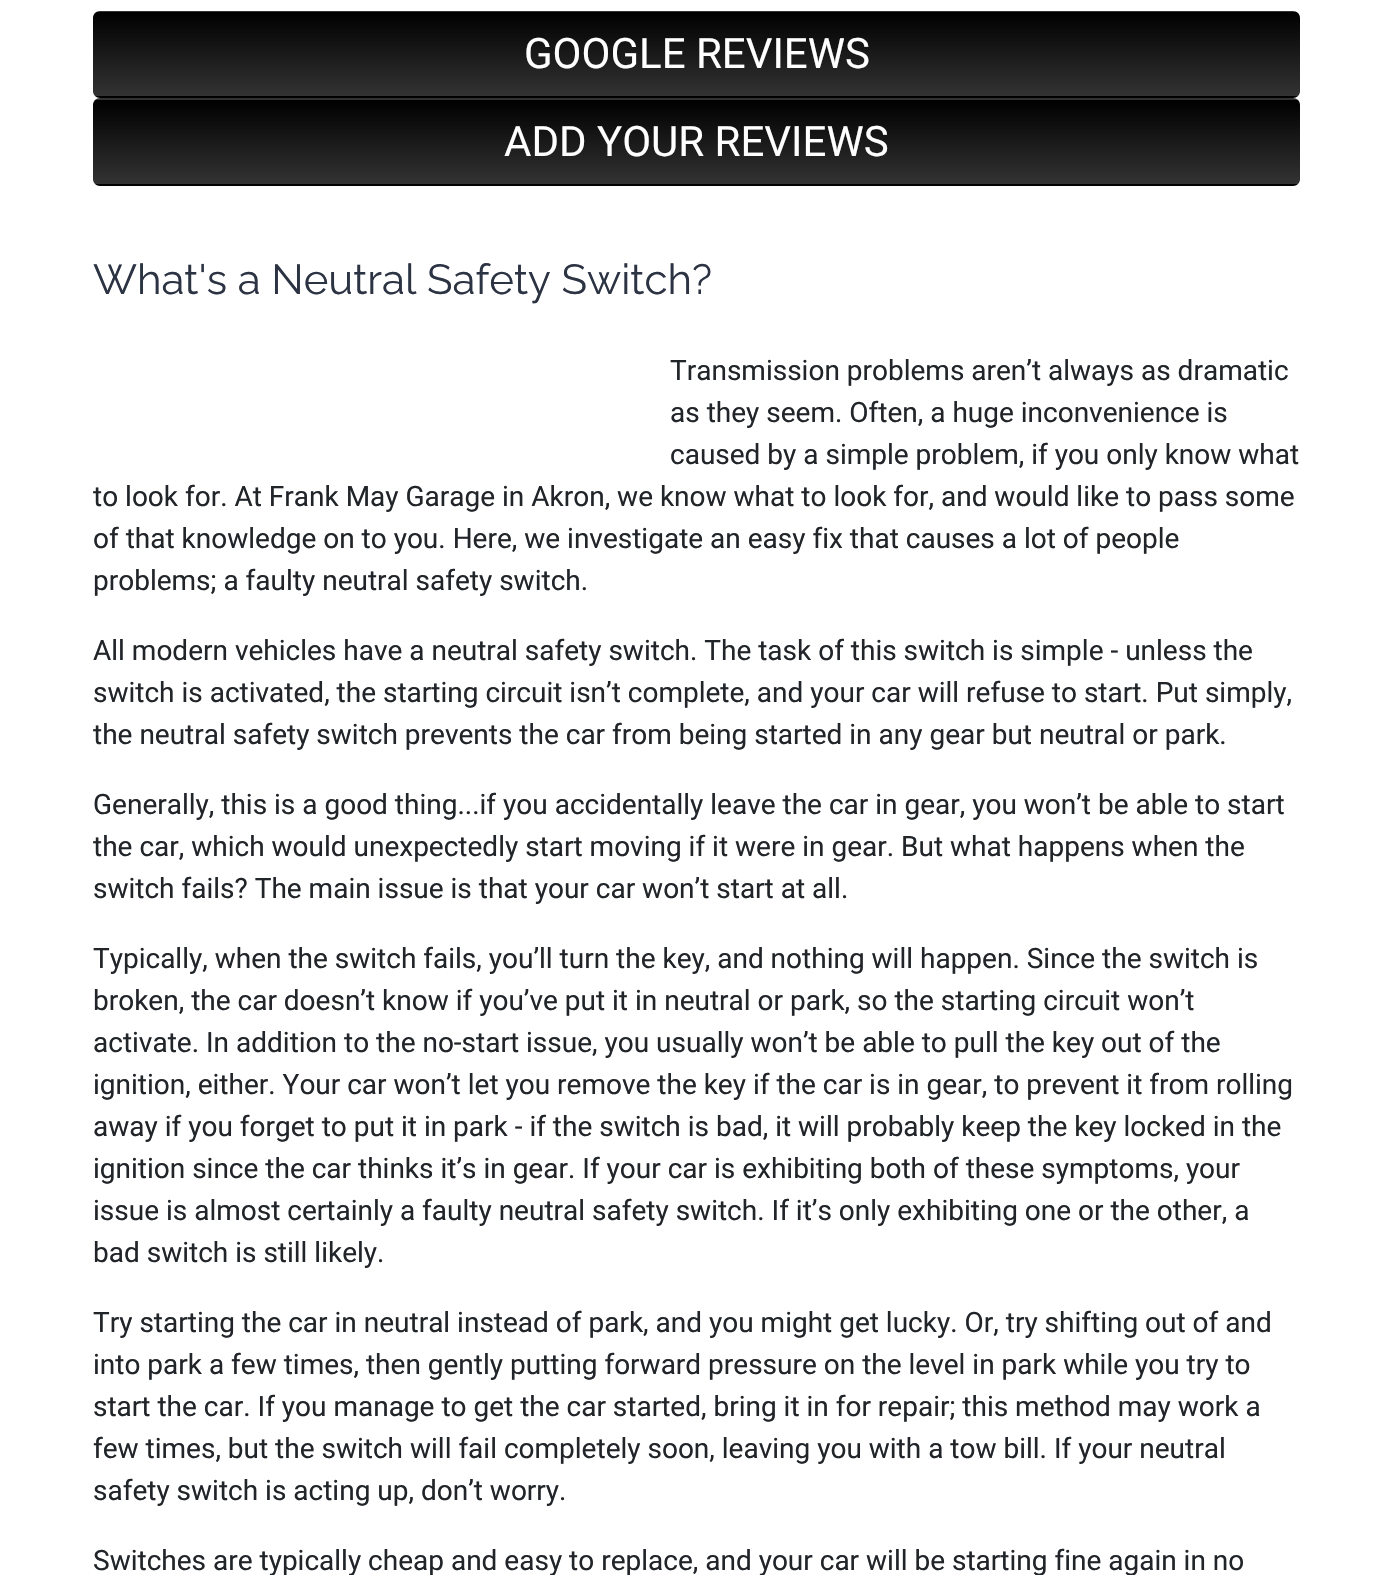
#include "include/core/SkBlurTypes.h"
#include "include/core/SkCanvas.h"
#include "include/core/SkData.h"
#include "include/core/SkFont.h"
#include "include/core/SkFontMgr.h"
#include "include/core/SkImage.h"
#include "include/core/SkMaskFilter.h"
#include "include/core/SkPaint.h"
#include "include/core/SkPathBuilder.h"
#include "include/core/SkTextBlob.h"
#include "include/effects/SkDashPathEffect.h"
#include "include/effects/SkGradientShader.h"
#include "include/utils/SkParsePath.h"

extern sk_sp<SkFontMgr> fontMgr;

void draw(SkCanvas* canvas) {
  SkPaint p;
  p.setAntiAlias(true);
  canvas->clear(SK_ColorWHITE);
  canvas->save();
  canvas->clipPath(SkPathBuilder().moveTo(100, 11).lineTo(1293, 11).cubicTo(1297, 11, 1300, 14, 1300, 18).lineTo(1300, 91).cubicTo(1300, 95, 1297, 98, 1293, 98).lineTo(100, 98).cubicTo(96, 98, 93, 95, 93, 91).lineTo(93, 18).cubicTo(93, 14, 96, 11, 100, 11).close().detach(), true);
  {
    const SkColor colors[] = {SK_ColorBLACK, SkColorSetRGB(51, 51, 51)};
    const float stops[] = {0, 1};
    const SkPoint ends[] = {{697, -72}, {697, 12}};
    p.setShader(SkGradientShader::MakeLinear(ends, colors, stops, 2, SkTileMode::kClamp));
    p.setAlpha(255);
  }
  canvas->drawRect(SkRect::MakeLTRB(93, 11, 1300, 12), p);
  {
    const SkColor colors[] = {SK_ColorBLACK, SkColorSetRGB(51, 51, 51)};
    const float stops[] = {0, 1};
    const SkPoint ends[] = {{697, 12}, {697, 96}};
    p.setShader(SkGradientShader::MakeLinear(ends, colors, stops, 2, SkTileMode::kClamp));
    p.setAlpha(255);
  }
  canvas->drawRect(SkRect::MakeLTRB(93, 12, 1300, 96), p);
  {
    const SkColor colors[] = {SK_ColorBLACK, SkColorSetRGB(51, 51, 51)};
    const float stops[] = {0, 1};
    const SkPoint ends[] = {{697, 96}, {697, 180}};
    p.setShader(SkGradientShader::MakeLinear(ends, colors, stops, 2, SkTileMode::kClamp));
    p.setAlpha(255);
  }
  canvas->drawRect(SkRect::MakeLTRB(93, 96, 1300, 98), p);
  canvas->restore();
  canvas->save();
  canvas->clipPath(SkPathBuilder().moveTo(100, 98).lineTo(1293, 98).cubicTo(1297, 98, 1300, 101, 1300, 105).lineTo(1300, 179).cubicTo(1300, 183, 1297, 186, 1293, 186).lineTo(100, 186).cubicTo(96, 186, 93, 183, 93, 179).lineTo(93, 105).cubicTo(93, 101, 96, 98, 100, 98).close().detach(), true);
  {
    const SkColor colors[] = {SK_ColorBLACK, SkColorSetRGB(51, 51, 51)};
    const float stops[] = {0, 1};
    const SkPoint ends[] = {{697, 16}, {697, 100}};
    p.setShader(SkGradientShader::MakeLinear(ends, colors, stops, 2, SkTileMode::kClamp));
    p.setAlpha(255);
  }
  canvas->drawRect(SkRect::MakeLTRB(93, 98, 1300, 100), p);
  {
    const SkColor colors[] = {SK_ColorBLACK, SkColorSetRGB(51, 51, 51)};
    const float stops[] = {0, 1};
    const SkPoint ends[] = {{697, 100}, {697, 184}};
    p.setShader(SkGradientShader::MakeLinear(ends, colors, stops, 2, SkTileMode::kClamp));
    p.setAlpha(255);
  }
  canvas->drawRect(SkRect::MakeLTRB(93, 100, 1300, 184), p);
  {
    const SkColor colors[] = {SK_ColorBLACK, SkColorSetRGB(51, 51, 51)};
    const float stops[] = {0, 1};
    const SkPoint ends[] = {{697, 184}, {697, 268}};
    p.setShader(SkGradientShader::MakeLinear(ends, colors, stops, 2, SkTileMode::kClamp));
    p.setAlpha(255);
  }
  canvas->drawRect(SkRect::MakeLTRB(93, 184, 1300, 186), p);
  canvas->restore();
  SkFont font1(fontMgr->matchFamilyStyle("Roboto", SkFontStyle::Normal()), 42);
  font1.setSubpixel(true);
  p.setShader(nullptr);
  p.setColor(SK_ColorWHITE);
  canvas->drawString("GOOGLE REVIEWS", 524, 68, font1, p);
  canvas->drawString("ADD YOUR REVIEWS", 504, 156, font1, p);
  SkFont font2(fontMgr->matchFamilyStyle("Raleway", SkFontStyle::Normal()), 42);
  font2.setSubpixel(true);
  p.setColor(SkColorSetRGB(44, 51, 67));
  canvas->drawString("What's a Neutral Safety Switch?", 93, 294, font2, p);
  SkFont font3(fontMgr->matchFamilyStyle("Roboto", SkFontStyle::Normal()), 28);
  font3.setSubpixel(true);
  p.setColor(SkColorSetRGB(33, 37, 41));
  canvas->drawString("Transmission problems aren’t always as dramatic", 670, 380, font3, p);
  canvas->drawString("as they seem. Often, a huge inconvenience is", 670, 422, font3, p);
  canvas->drawString("caused by a simple problem, if you only know what", 670, 464, font3, p);
  canvas->drawString("to look for. At Frank May Garage in Akron, we know what to look for, and would like to pass some", 93, 506, font3, p);
  canvas->drawString("of that knowledge on to you. Here, we investigate an easy fix that causes a lot of people", 93, 548, font3, p);
  canvas->drawString("problems; a faulty neutral safety switch.", 93, 590, font3, p);
  canvas->drawString("All modern vehicles have a neutral safety switch. The task of this switch is simple - unless the", 93, 660, font3, p);
  canvas->drawString("switch is activated, the starting circuit isn’t complete, and your car will refuse to start. Put simply,", 93, 702, font3, p);
  canvas->drawString("the neutral safety switch prevents the car from being started in any gear but neutral or park.", 93, 744, font3, p);
  canvas->drawString("Generally, this is a good thing...if you accidentally leave the car in gear, you won’t be able to start", 93, 814, font3, p);
  canvas->drawString("the car, which would unexpectedly start moving if it were in gear. But what happens when the", 93, 856, font3, p);
  canvas->drawString("switch fails? The main issue is that your car won’t start at all.", 93, 898, font3, p);
  canvas->drawString("Typically, when the switch fails, you’ll turn the key, and nothing will happen. Since the switch is", 93, 968, font3, p);
  canvas->drawString("broken, the car doesn’t know if you’ve put it in neutral or park, so the starting circuit won’t", 93, 1010, font3, p);
  canvas->drawString("activate. In addition to the no-start issue, you usually won’t be able to pull the key out of the", 93, 1052, font3, p);
  canvas->drawString("ignition, either. Your car won’t let you remove the key if the car is in gear, to prevent it from rolling", 93, 1094, font3, p);
  canvas->drawString("away if you forget to put it in park - if the switch is bad, it will probably keep the key locked in the", 93, 1136, font3, p);
  canvas->drawString("ignition since the car thinks it’s in gear. If your car is exhibiting both of these symptoms, your", 93, 1178, font3, p);
  canvas->drawString("issue is almost certainly a faulty neutral safety switch. If it’s only exhibiting one or the other, a", 93, 1220, font3, p);
  canvas->drawString("bad switch is still likely.", 93, 1262, font3, p);
  canvas->drawString("Try starting the car in neutral instead of park, and you might get lucky. Or, try shifting out of and", 93, 1332, font3, p);
  canvas->drawString("into park a few times, then gently putting forward pressure on the level in park while you try to", 93, 1374, font3, p);
  canvas->drawString("start the car. If you manage to get the car started, bring it in for repair; this method may work a", 93, 1416, font3, p);
  canvas->drawString("few times, but the switch will fail completely soon, leaving you with a tow bill. If your neutral", 93, 1458, font3, p);
  canvas->drawString("safety switch is acting up, don’t worry.", 93, 1500, font3, p);
  canvas->drawString("Switches are typically cheap and easy to replace, and your car will be starting fine again in no", 93, 1570, font3, p);
}
